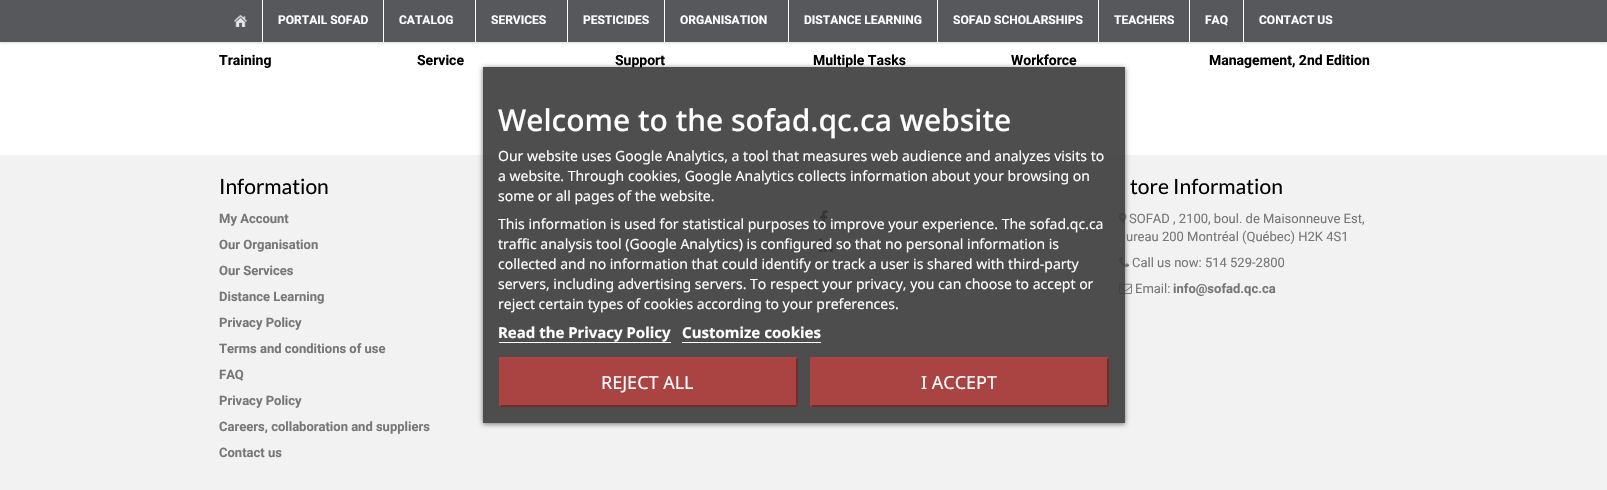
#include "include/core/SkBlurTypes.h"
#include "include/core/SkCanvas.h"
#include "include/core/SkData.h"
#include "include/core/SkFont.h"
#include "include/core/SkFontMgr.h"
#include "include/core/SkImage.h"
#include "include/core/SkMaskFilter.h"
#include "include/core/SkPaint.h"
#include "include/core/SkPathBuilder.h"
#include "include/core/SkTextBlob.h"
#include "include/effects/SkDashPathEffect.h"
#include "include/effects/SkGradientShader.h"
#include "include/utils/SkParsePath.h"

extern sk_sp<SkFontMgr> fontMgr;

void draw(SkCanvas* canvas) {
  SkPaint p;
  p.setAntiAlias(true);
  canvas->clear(SK_ColorWHITE);
  p.setColor(SkColorSetARGB(38, 0, 0, 0));
  p.setMaskFilter(SkMaskFilter::MakeBlur(kNormal_SkBlurStyle, 1));
  canvas->drawRect(SkRect::MakeLTRB(0, 1, 1607, 43), p);
  p.setMaskFilter(nullptr);
  p.setColor(SkColorSetRGB(87, 88, 92));
  canvas->drawRect(SkRect::MakeLTRB(0, 0, 1607, 42), p);
  canvas->drawImageRect(SkImages::DeferredFromEncodedData(SkData::MakeFromFileName("images/1.png")), SkRect::MakeLTRB(234, 15, 247, 27), SkSamplingOptions());
  p.setColor(SK_ColorWHITE);
  canvas->drawRect(SkRect::MakeLTRB(262, 0, 263, 42), p);
  canvas->drawRect(SkRect::MakeLTRB(383, 0, 384, 42), p);
  canvas->drawRect(SkRect::MakeLTRB(475, 0, 476, 42), p);
  canvas->drawRect(SkRect::MakeLTRB(567, 0, 568, 42), p);
  canvas->drawRect(SkRect::MakeLTRB(664, 0, 665, 42), p);
  canvas->drawRect(SkRect::MakeLTRB(788, 0, 789, 42), p);
  canvas->drawRect(SkRect::MakeLTRB(937, 0, 938, 42), p);
  canvas->drawRect(SkRect::MakeLTRB(1098, 0, 1099, 42), p);
  canvas->drawRect(SkRect::MakeLTRB(1189, 0, 1190, 42), p);
  canvas->drawRect(SkRect::MakeLTRB(1243, 0, 1244, 42), p);
  p.setColor(SkColorSetRGB(242, 242, 242));
  canvas->drawRect(SkRect::MakeLTRB(0, 155, 1607, 490), p);
  canvas->drawImageRect(SkImages::DeferredFromEncodedData(SkData::MakeFromFileName("images/2.png")), SkRect::MakeLTRB(1119, 212, 1127, 224), SkSamplingOptions());
  canvas->drawImageRect(SkImages::DeferredFromEncodedData(SkData::MakeFromFileName("images/3.png")), SkRect::MakeLTRB(1119, 256, 1130, 267), SkSamplingOptions());
  canvas->drawImageRect(SkImages::DeferredFromEncodedData(SkData::MakeFromFileName("images/4.png")), SkRect::MakeLTRB(1119, 283, 1132, 294), SkSamplingOptions());
  canvas->drawImageRect(SkImages::DeferredFromEncodedData(SkData::MakeFromFileName("images/5.png")), SkRect::MakeLTRB(819, 210, 828, 226), SkSamplingOptions());
  canvas->drawImageRect(SkImages::DeferredFromEncodedData(SkData::MakeFromFileName("images/6.png")), SkRect::MakeLTRB(819, 238, 833, 252), SkSamplingOptions());
  canvas->save();
  canvas->clipPath(SkPathBuilder(SkPathFillType::kEvenOdd).moveTo(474, 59).lineTo(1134, 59).lineTo(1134, 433).lineTo(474, 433).close().moveTo(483, 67).lineTo(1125, 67).lineTo(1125, 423).lineTo(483, 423).close().detach(), true);
  p.setColor(SkColorSetRGB(112, 112, 112));
  p.setMaskFilter(SkMaskFilter::MakeBlur(kNormal_SkBlurStyle, 2.5f));
  canvas->drawRect(SkRect::MakeLTRB(483, 68, 1125, 424), p);
  p.setMaskFilter(nullptr);
  canvas->restore();
  SkFont font1(fontMgr->matchFamilyStyle("Roboto", SkFontStyle::Bold()), 12);
  font1.setSubpixel(true);
  p.setColor(SK_ColorWHITE);
  canvas->drawString("PORTAIL SOFAD", 278, 24, font1, p);
  canvas->drawString("CATALOG", 399, 24, font1, p);
  canvas->drawString("SERVICES", 491, 24, font1, p);
  canvas->drawString("PESTICIDES", 583, 24, font1, p);
  canvas->drawString("ORGANISATION", 680, 24, font1, p);
  canvas->drawString("DISTANCE LEARNING", 804, 24, font1, p);
  canvas->drawString("SOFAD SCHOLARSHIPS", 953, 24, font1, p);
  canvas->drawString("TEACHERS", 1114, 24, font1, p);
  canvas->drawString("FAQ", 1205, 24, font1, p);
  canvas->drawString("CONTACT US", 1259, 24, font1, p);
  SkFont font2(fontMgr->matchFamilyStyle("Roboto", SkFontStyle::Bold()), 14);
  font2.setSubpixel(true);
  p.setColor(SK_ColorBLACK);
  canvas->drawString("Training", 219, 65, font2, p);
  canvas->drawString("Service", 417, 65, font2, p);
  canvas->drawString("Support", 615, 65, font2, p);
  canvas->drawString("Multiple Tasks", 813, 65, font2, p);
  canvas->drawString("Workforce", 1011, 65, font2, p);
  canvas->drawString("Management, 2nd Edition", 1209, 65, font2, p);
  SkFont font3(fontMgr->matchFamilyStyle("Lato", SkFontStyle::Normal()), 21);
  font3.setSubpixel(true);
  canvas->drawString("Information", 219, 194, font3, p);
  SkFont font4(fontMgr->matchFamilyStyle("Roboto", SkFontStyle::Bold()), 13);
  font4.setSubpixel(true);
  p.setColor(SkColorSetRGB(119, 119, 119));
  canvas->drawString("My Account", 219, 223, font4, p);
  canvas->drawString("Our Organisation", 219, 249, font4, p);
  canvas->drawString("Our Services", 219, 275, font4, p);
  canvas->drawString("Distance Learning", 219, 301, font4, p);
  canvas->drawString("Privacy Policy", 219, 327, font4, p);
  canvas->drawString("Terms and conditions of use", 219, 353, font4, p);
  canvas->drawString("FAQ", 219, 379, font4, p);
  canvas->drawString("Privacy Policy", 219, 405, font4, p);
  canvas->drawString("Careers, collaboration and suppliers", 219, 431, font4, p);
  canvas->drawString("Contact us", 219, 457, font4, p);
  p.setColor(SkColorSetARGB(230, 59, 59, 59));
  canvas->drawRect(SkRect::MakeLTRB(483, 67, 1125, 423), p);
  SkFont font5(fontMgr->matchFamilyStyle("Noto Sans", SkFontStyle(500, SkFontStyle::kNormal_Width, SkFontStyle::kUpright_Slant)), 30);
  font5.setSubpixel(true);
  p.setColor(SK_ColorWHITE);
  canvas->drawString("Welcome to the sofad.qc.ca website", 498, 131, font5, p);
  SkFont font6(fontMgr->matchFamilyStyle("Noto Sans", SkFontStyle::Normal()), 14);
  font6.setSubpixel(true);
  canvas->drawString("Our website uses Google Analytics, a tool that measures web audience and analyzes visits to", 498, 161, font6, p);
  canvas->drawString("a website. Through cookies, Google Analytics collects information about your browsing on", 498, 181, font6, p);
  canvas->drawString("some or all pages of the website.", 498, 201, font6, p);
  canvas->drawString("This information is used for statistical purposes to improve your experience. The sofad.qc.ca", 498, 229, font6, p);
  canvas->drawString("traffic analysis tool (Google Analytics) is configured so that no personal information is", 498, 249, font6, p);
  canvas->drawString("collected and no information that could identify or track a user is shared with third-party", 498, 269, font6, p);
  canvas->drawString("servers, including advertising servers. To respect your privacy, you can choose to accept or", 498, 289, font6, p);
  canvas->drawString("reject certain types of cookies according to your preferences.", 498, 309, font6, p);
  SkFont font7(fontMgr->matchFamilyStyle("Noto Sans", SkFontStyle::Bold()), 15);
  font7.setSubpixel(true);
  canvas->drawString("Read the Privacy Policy", 498, 338, font7, p);
  canvas->drawRect(SkRect::MakeLTRB(499, 342, 671, 343), p);
  canvas->drawString("Customize cookies", 682, 338, font7, p);
  canvas->drawRect(SkRect::MakeLTRB(682, 342, 821, 343), p);
  p.setColor(SkColorSetRGB(169, 68, 66));
  canvas->drawRect(SkRect::MakeLTRB(499, 357, 798, 407), p);
  p.setColor(SkColorSetRGB(113, 45, 44));
  canvas->drawPath(SkPathBuilder().moveTo(798, 357).lineTo(798, 407).lineTo(796, 405).lineTo(796, 359).close().detach(), p);
  canvas->drawPath(SkPathBuilder().moveTo(798, 407).lineTo(499, 407).lineTo(501, 405).lineTo(796, 405).close().detach(), p);
  p.setColor(SkColorSetRGB(169, 68, 66));
  canvas->drawPath(SkPathBuilder().moveTo(499, 407).lineTo(499, 357).lineTo(501, 359).lineTo(501, 405).close().detach(), p);
  SkFont font8(fontMgr->matchFamilyStyle("Noto Sans", SkFontStyle::Normal()), 18);
  font8.setSubpixel(true);
  p.setColor(SK_ColorWHITE);
  canvas->drawString("REJECT ALL", 601, 389, font8, p);
  p.setColor(SkColorSetRGB(169, 68, 66));
  canvas->drawRect(SkRect::MakeLTRB(810, 357, 1109, 407), p);
  p.setColor(SkColorSetRGB(113, 45, 44));
  canvas->drawPath(SkPathBuilder().moveTo(1109, 357).lineTo(1109, 407).lineTo(1107, 405).lineTo(1107, 359).close().detach(), p);
  canvas->drawPath(SkPathBuilder().moveTo(1109, 407).lineTo(810, 407).lineTo(812, 405).lineTo(1107, 405).close().detach(), p);
  p.setColor(SkColorSetRGB(169, 68, 66));
  canvas->drawPath(SkPathBuilder().moveTo(810, 407).lineTo(810, 357).lineTo(812, 359).lineTo(812, 405).close().detach(), p);
  p.setColor(SK_ColorWHITE);
  canvas->drawString("I ACCEPT", 921, 389, font8, p);
  p.setColor(SK_ColorBLACK);
  canvas->drawString("tore Information", 1130, 194, font3, p);
  SkFont font9(fontMgr->matchFamilyStyle("Roboto", SkFontStyle::Normal()), 13);
  font9.setSubpixel(true);
  p.setColor(SkColorSetRGB(119, 119, 119));
  canvas->drawString("SOFAD , 2100, boul. de Maisonneuve Est,", 1129, 223, font9, p);
  canvas->drawString("ureau 200 Montréal (Québec) H2K 4S1", 1126, 241, font9, p);
  canvas->drawString("Call us now: 514 529-2800", 1132, 267, font9, p);
  canvas->drawString("Email:", 1135, 293, font9, p);
  canvas->drawString("info@sofad.qc.ca", 1173, 293, font4, p);
}
